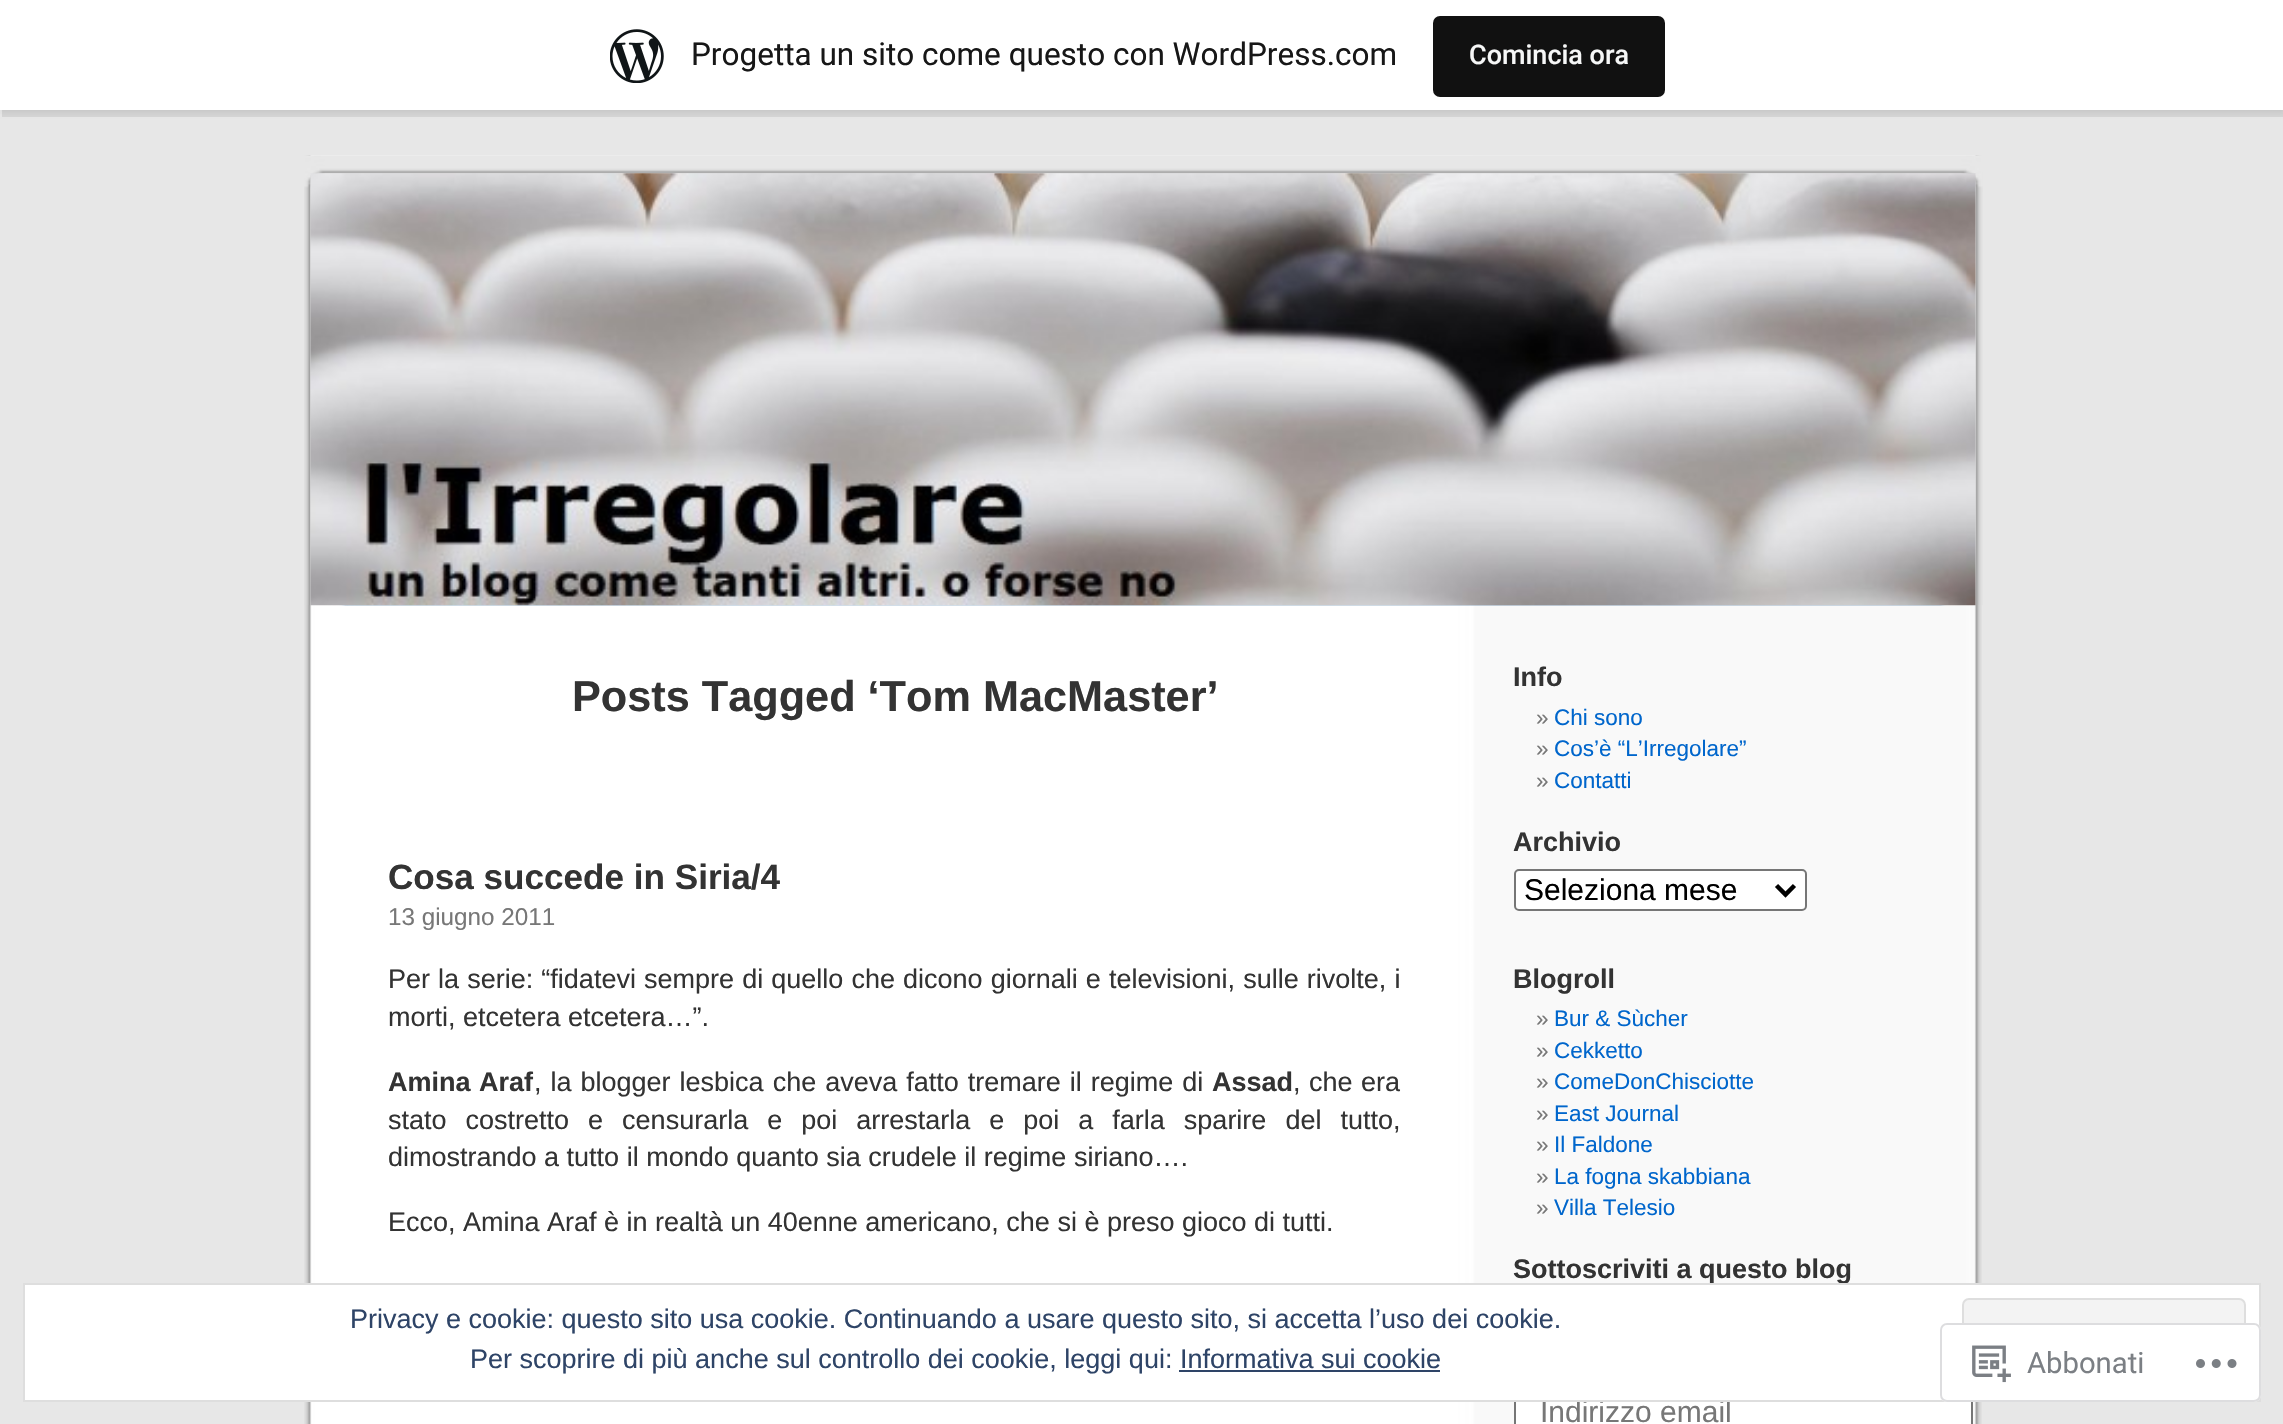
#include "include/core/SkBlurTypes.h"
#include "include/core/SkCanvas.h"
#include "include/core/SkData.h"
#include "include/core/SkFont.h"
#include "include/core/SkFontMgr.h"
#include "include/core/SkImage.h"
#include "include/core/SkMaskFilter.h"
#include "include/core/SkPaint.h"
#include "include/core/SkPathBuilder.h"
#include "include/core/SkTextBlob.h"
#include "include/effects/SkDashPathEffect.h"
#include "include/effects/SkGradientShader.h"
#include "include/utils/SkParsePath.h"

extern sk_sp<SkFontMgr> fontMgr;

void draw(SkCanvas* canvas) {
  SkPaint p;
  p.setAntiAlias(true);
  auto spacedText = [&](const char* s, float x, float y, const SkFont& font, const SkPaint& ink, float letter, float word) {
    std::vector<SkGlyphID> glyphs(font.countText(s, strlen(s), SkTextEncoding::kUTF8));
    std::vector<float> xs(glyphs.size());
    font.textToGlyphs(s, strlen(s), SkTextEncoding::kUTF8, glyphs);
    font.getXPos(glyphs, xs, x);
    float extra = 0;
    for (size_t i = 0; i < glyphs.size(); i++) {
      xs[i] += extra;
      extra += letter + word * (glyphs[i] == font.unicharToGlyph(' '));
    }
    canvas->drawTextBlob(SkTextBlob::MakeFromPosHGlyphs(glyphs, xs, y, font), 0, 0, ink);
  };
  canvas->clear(SkColorSetRGB(231, 231, 231));
  p.setColor(SkColorSetARGB(13, 0, 0, 0));
  p.setMaskFilter(SkMaskFilter::MakeBlur(kNormal_SkBlurStyle, 2));
  canvas->drawRect(SkRect::MakeLTRB(0, 2, 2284, 113), p);
  p.setMaskFilter(nullptr);
  p.setColor(SkColorSetARGB(20, 0, 0, 0));
  canvas->drawPath(SkPathBuilder().moveTo(2, 110).lineTo(2, 117).lineTo(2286, 117).lineTo(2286, 7).lineTo(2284, 7).lineTo(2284, 110).close().detach(), p);
  p.setColor(SK_ColorWHITE);
  canvas->drawRect(SkRect::MakeLTRB(0, 0, 2283, 110), p);
  canvas->drawImageRect(SkImages::DeferredFromEncodedData(SkData::MakeFromFileName("images/1.png")), SkRect::MakeLTRB(610, 29, 664, 83), SkSamplingOptions());
  p.setColor(SkColorSetRGB(17, 17, 17));
  canvas->drawRoundRect(SkRect::MakeLTRB(1433, 16, 1665, 97), 7, 7, p);
  canvas->drawImageRect(SkImages::DeferredFromEncodedData(SkData::MakeFromFileName("images/2.png")), SkRect::MakeLTRB(304, 155, 1982, 1424), SkSamplingOptions());
  canvas->drawImageRect(SkImages::DeferredFromEncodedData(SkData::MakeFromFileName("images/3.png")), SkRect::MakeLTRB(304, 155, 1983, 606), SkSamplingOptions());
  canvas->drawImageRect(SkImages::DeferredFromEncodedData(SkData::MakeFromFileName("images/4.png")), SkRect::MakeLTRB(310, 173, 1976, 606), SkSamplingOptions());
  p.setColor(SK_ColorWHITE);
  canvas->drawRoundRect(SkRect::MakeLTRB(1515, 870, 1806, 910), 4, 4, p);
  p.setStyle(SkPaint::kStroke_Style);
  p.setStrokeWidth(2);
  p.setColor(SkColorSetRGB(118, 118, 118));
  canvas->drawRoundRect(SkRect::MakeLTRB(1515, 870, 1806, 910), 4, 4, p);
  p.setStrokeWidth(4.5f);
  p.setColor(SK_ColorBLACK);
  canvas->drawPath(SkPathBuilder().moveTo(1776.5f, 885.5f).lineTo(1785.5f, 894.5f).lineTo(1794.5f, 885.5f).detach(), p);
  p.setStyle(SkPaint::kFill_Style);
  p.setColor(SK_ColorWHITE);
  canvas->drawRect(SkRect::MakeLTRB(1516, 1402, 1971, 1424), p);
  p.setStyle(SkPaint::kStroke_Style);
  p.setStrokeWidth(2);
  p.setColor(SkColorSetRGB(118, 118, 118));
  canvas->drawRect(SkRect::MakeLTRB(1515, 1389, 1972, 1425), p);
  SkFont font1(fontMgr->matchFamilyStyle("Roboto", SkFontStyle::Normal()), 31.5f);
  font1.setSubpixel(true);
  p.setStyle(SkPaint::kFill_Style);
  p.setColor(SkColorSetRGB(23, 23, 23));
  canvas->drawString("Progetta un sito come questo con WordPress.com", 691, 65, font1, p);
  SkFont font2(fontMgr->matchFamilyStyle("Roboto", SkFontStyle(500, SkFontStyle::kNormal_Width, SkFontStyle::kUpright_Slant)), 27);
  font2.setSubpixel(true);
  p.setColor(SkColorSetRGB(246, 247, 247));
  canvas->drawString("Comincia ora", 1469, 64, font2, p);
  SkFont font3(fontMgr->matchFamilyStyle("Liberation Sans", SkFontStyle::Bold()), 43.25f);
  font3.setSubpixel(true);
  p.setColor(SkColorSetRGB(51, 51, 51));
  canvas->drawString("Posts Tagged ‘Tom MacMaster’", 572, 711, font3, p);
  SkFont font4(fontMgr->matchFamilyStyle("Liberation Sans", SkFontStyle::Bold()), 35.1f);
  font4.setSubpixel(true);
  canvas->drawString("Cosa succede in Siria/4", 388, 889, font4, p);
  SkFont font5(fontMgr->matchFamilyStyle("Liberation Sans", SkFontStyle::Normal()), 24.25f);
  font5.setSubpixel(true);
  p.setColor(SkColorSetRGB(119, 119, 119));
  canvas->drawString("13 giugno 2011", 388, 925, font5, p);
  SkFont font6(fontMgr->matchFamilyStyle("Liberation Sans", SkFontStyle::Normal()), 27);
  font6.setSubpixel(true);
  p.setColor(SkColorSetRGB(51, 51, 51));
  spacedText("Per la serie: “fidatevi sempre di quello che dicono giornali e televisioni, sulle rivolte, i", 388, 988, font6, p, 0, 0.6f);
  canvas->drawString("morti, etcetera etcetera…”.", 388, 1026, font6, p);
  SkFont font7(fontMgr->matchFamilyStyle("Liberation Sans", SkFontStyle::Bold()), 27);
  font7.setSubpixel(true);
  spacedText("Amina Araf", 388, 1091, font7, p, 0, 1);
  spacedText(", la blogger lesbica che aveva fatto tremare il regime di", 534, 1091, font6, p, 0, 1.5f);
  canvas->drawString("Assad", 1212, 1091, font7, p);
  spacedText(", che era", 1293, 1091, font6, p, 0, 1);
  spacedText("stato costretto e censurarla e poi arrestarla e poi a farla sparire del tutto,", 388, 1129, font6, p, 0, 11.5f);
  canvas->drawString("dimostrando a tutto il mondo quanto sia crudele il regime siriano….", 388, 1166, font6, p);
  canvas->drawString("Ecco, Amina Araf è in realtà un 40enne americano, che si è preso gioco di tutti.", 388, 1231, font6, p);
  canvas->drawString("Info", 1513, 686, font7, p);
  SkFont font8(fontMgr->matchFamilyStyle("Liberation Sans", SkFontStyle::Normal()), 22.5f);
  font8.setSubpixel(true);
  p.setColor(SkColorSetRGB(119, 119, 119));
  canvas->drawString("»", 1536, 725, font8, p);
  p.setColor(SkColorSetRGB(0, 102, 204));
  canvas->drawString("Chi sono", 1554, 725, font8, p);
  p.setColor(SkColorSetRGB(119, 119, 119));
  canvas->drawString("»", 1536, 756, font8, p);
  p.setColor(SkColorSetRGB(0, 102, 204));
  canvas->drawString("Cos’è “L’Irregolare”", 1554, 756, font8, p);
  p.setColor(SkColorSetRGB(119, 119, 119));
  canvas->drawString("»", 1536, 788, font8, p);
  p.setColor(SkColorSetRGB(0, 102, 204));
  canvas->drawString("Contatti", 1554, 788, font8, p);
  p.setColor(SkColorSetRGB(51, 51, 51));
  canvas->drawString("Archivio", 1513, 851, font7, p);
  SkFont font9(fontMgr->matchFamilyStyle("Liberation Sans", SkFontStyle::Normal()), 30);
  font9.setSubpixel(true);
  p.setColor(SK_ColorBLACK);
  canvas->drawString("Seleziona mese", 1524, 900, font9, p);
  p.setColor(SkColorSetRGB(51, 51, 51));
  canvas->drawString("Blogroll", 1513, 988, font7, p);
  p.setColor(SkColorSetRGB(119, 119, 119));
  canvas->drawString("»", 1536, 1026, font8, p);
  p.setColor(SkColorSetRGB(0, 102, 204));
  canvas->drawString("Bur & Sùcher", 1554, 1026, font8, p);
  p.setColor(SkColorSetRGB(119, 119, 119));
  canvas->drawString("»", 1536, 1058, font8, p);
  p.setColor(SkColorSetRGB(0, 102, 204));
  canvas->drawString("Cekketto", 1554, 1058, font8, p);
  p.setColor(SkColorSetRGB(119, 119, 119));
  canvas->drawString("»", 1536, 1089, font8, p);
  p.setColor(SkColorSetRGB(0, 102, 204));
  canvas->drawString("ComeDonChisciotte", 1554, 1089, font8, p);
  p.setColor(SkColorSetRGB(119, 119, 119));
  canvas->drawString("»", 1536, 1121, font8, p);
  p.setColor(SkColorSetRGB(0, 102, 204));
  canvas->drawString("East Journal", 1554, 1121, font8, p);
  p.setColor(SkColorSetRGB(119, 119, 119));
  canvas->drawString("»", 1536, 1152, font8, p);
  p.setColor(SkColorSetRGB(0, 102, 204));
  canvas->drawString("Il Faldone", 1554, 1152, font8, p);
  p.setColor(SkColorSetRGB(119, 119, 119));
  canvas->drawString("»", 1536, 1184, font8, p);
  p.setColor(SkColorSetRGB(0, 102, 204));
  canvas->drawString("La fogna skabbiana", 1554, 1184, font8, p);
  p.setColor(SkColorSetRGB(119, 119, 119));
  canvas->drawString("»", 1536, 1215, font8, p);
  p.setColor(SkColorSetRGB(0, 102, 204));
  canvas->drawString("Villa Telesio", 1554, 1215, font8, p);
  p.setColor(SkColorSetRGB(51, 51, 51));
  canvas->drawString("Sottoscriviti a questo blog", 1513, 1278, font7, p);
  p.setColor(SkColorSetRGB(119, 119, 119));
  canvas->drawString("Indirizzo email", 1540, 1422, font9, p);
  p.setColor(SK_ColorWHITE);
  canvas->drawRect(SkRect::MakeLTRB(24, 1284, 2260, 1401), p);
  p.setStyle(SkPaint::kStroke_Style);
  p.setColor(SkColorSetRGB(222, 222, 222));
  canvas->drawRect(SkRect::MakeLTRB(24, 1284, 2260, 1401), p);
  p.setStyle(SkPaint::kFill_Style);
  p.setColor(SkColorSetRGB(46, 68, 103));
  canvas->drawString("Privacy e cookie: questo sito usa cookie. Continuando a usare questo sito, si accetta l’uso dei cookie.", 350, 1328, font6, p);
  p.setColor(SkColorSetRGB(243, 243, 243));
  canvas->drawRoundRect(SkRect::MakeLTRB(1963, 1299, 2245, 1385), 6, 6, p);
  p.setStyle(SkPaint::kStroke_Style);
  p.setColor(SkColorSetRGB(222, 222, 222));
  canvas->drawRoundRect(SkRect::MakeLTRB(1963, 1299, 2245, 1385), 6, 6, p);
  p.setStyle(SkPaint::kFill_Style);
  p.setColor(SkColorSetRGB(46, 68, 103));
  canvas->drawString("Per scoprire di più anche sul controllo dei cookie, leggi qui: Informativa sui cookie", 470, 1368, font6, p);
  canvas->drawRect(SkRect::MakeLTRB(1179, 1370, 1440, 1372), p);
  p.setColor(SkColorSetARGB(250, 255, 255, 255));
  canvas->drawRoundRect(SkRect::MakeLTRB(1940, 1323, 2261, 1402), 7, 7, p);
  p.setStyle(SkPaint::kStroke_Style);
  p.setColor(SkColorSetARGB(250, 220, 220, 222));
  canvas->drawRoundRect(SkRect::MakeLTRB(1941, 1324, 2260, 1401), 6, 6, p);
  canvas->drawImageRect(SkImages::DeferredFromEncodedData(SkData::MakeFromFileName("images/5.png")), SkRect::MakeLTRB(1972, 1345, 2011, 1383), SkSamplingOptions());
  SkFont font10(fontMgr->matchFamilyStyle("Roboto", SkFontStyle::Normal()), 29.25f);
  font10.setSubpixel(true);
  p.setStyle(SkPaint::kFill_Style);
  p.setColor(SkColorSetRGB(123, 127, 132));
  canvas->drawString("Abbonati", 2027, 1373, font10, p);
  canvas->drawImageRect(SkImages::DeferredFromEncodedData(SkData::MakeFromFileName("images/6.png")), SkRect::MakeLTRB(2196, 1359, 2237, 1368), SkSamplingOptions());
}
